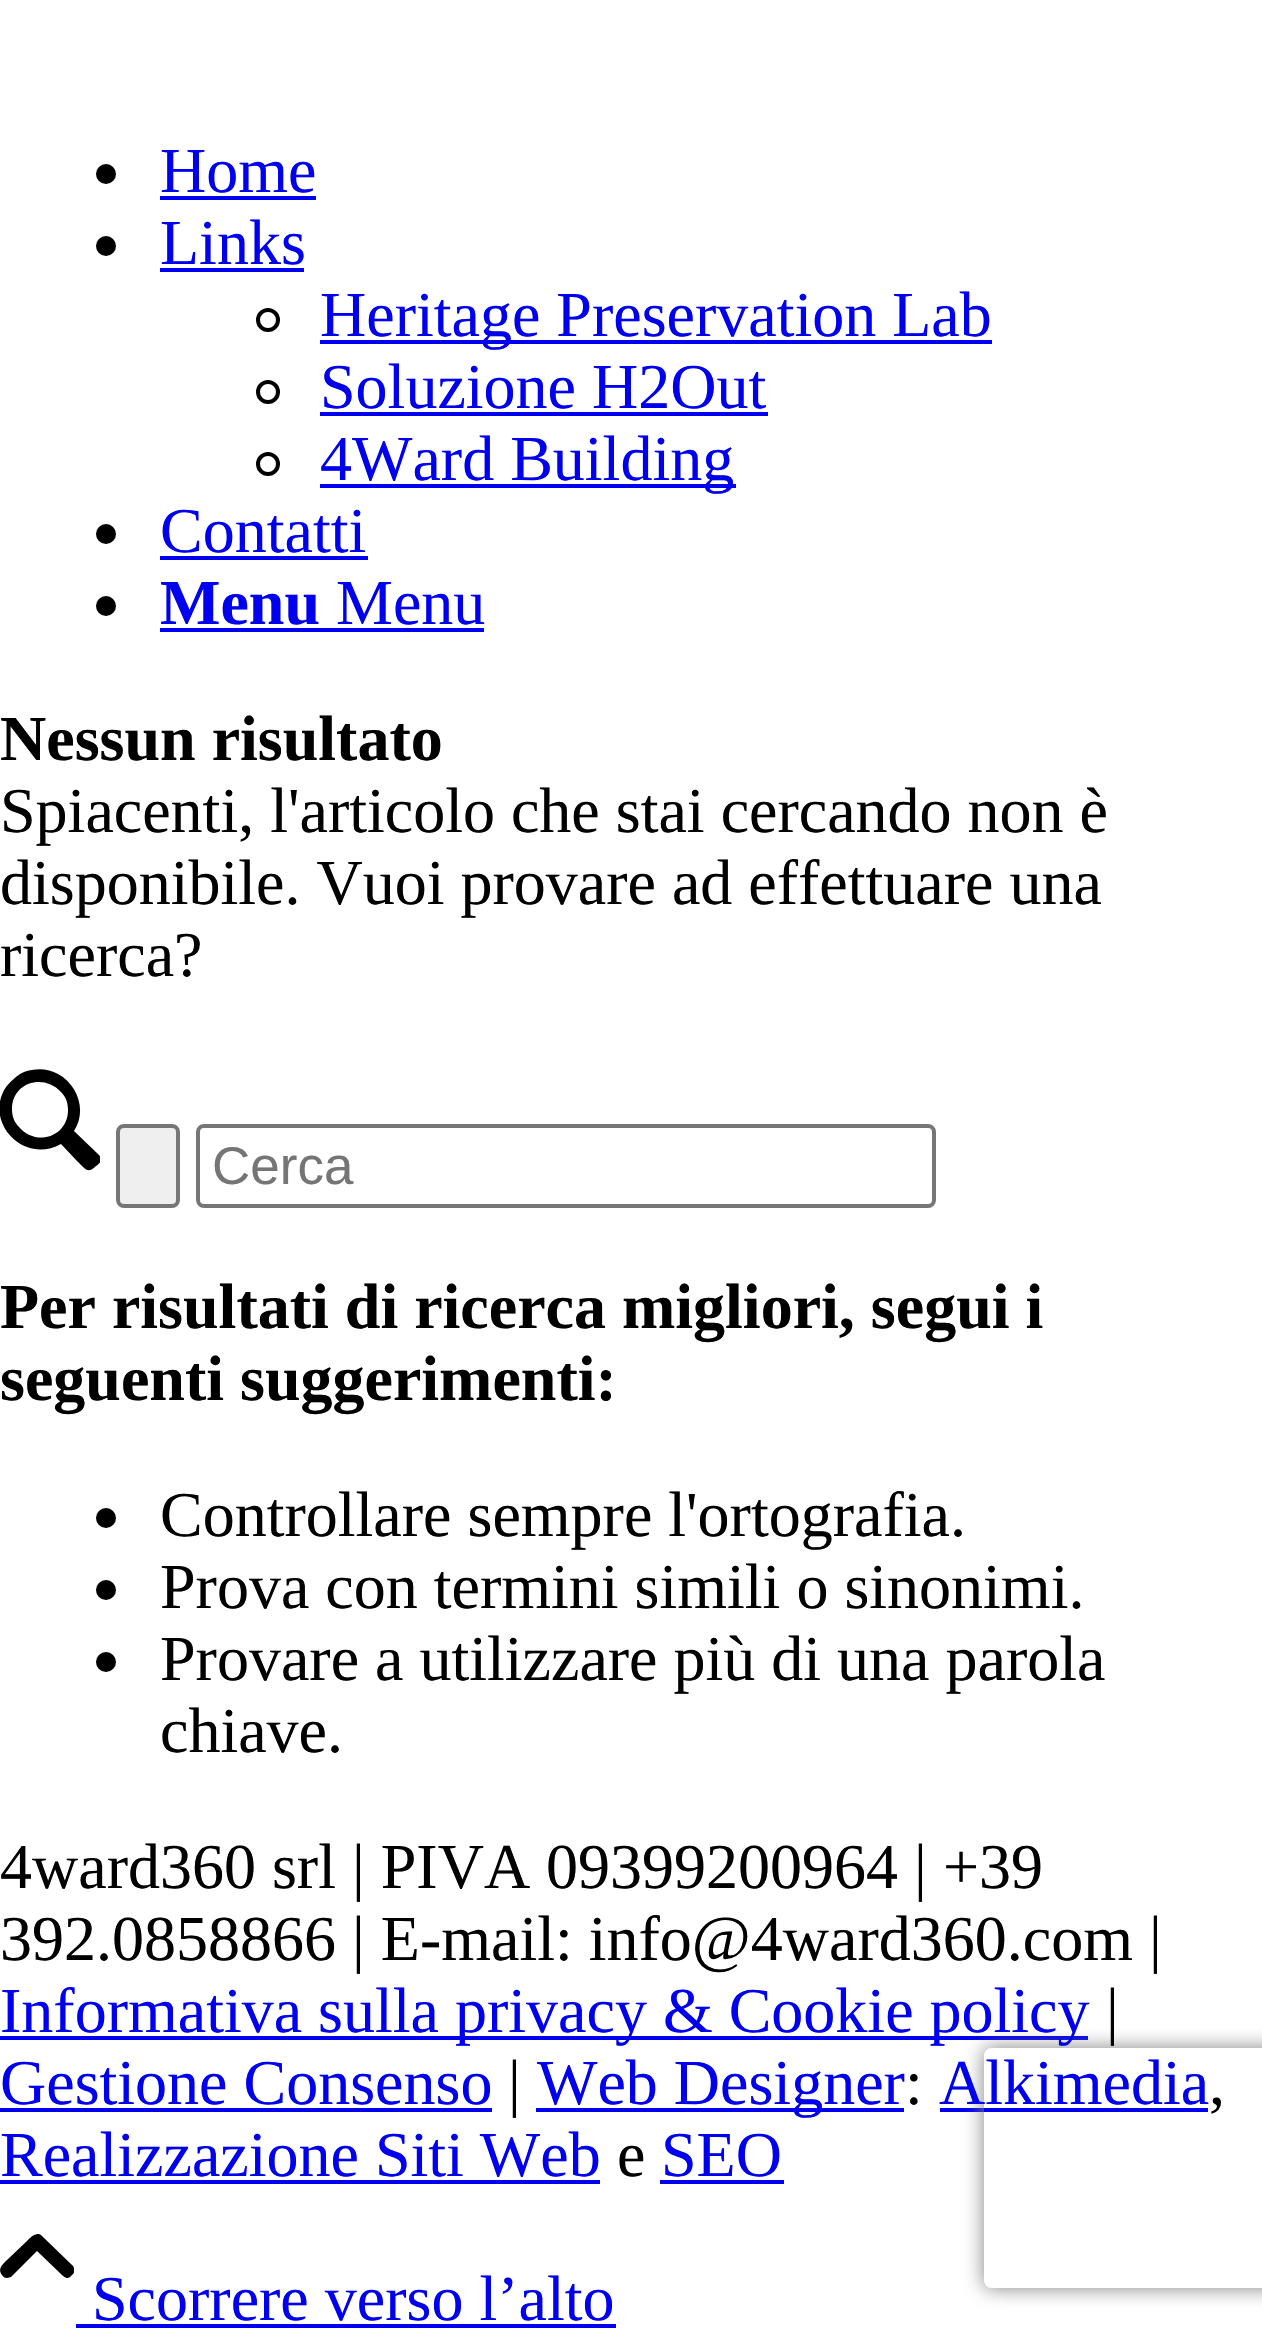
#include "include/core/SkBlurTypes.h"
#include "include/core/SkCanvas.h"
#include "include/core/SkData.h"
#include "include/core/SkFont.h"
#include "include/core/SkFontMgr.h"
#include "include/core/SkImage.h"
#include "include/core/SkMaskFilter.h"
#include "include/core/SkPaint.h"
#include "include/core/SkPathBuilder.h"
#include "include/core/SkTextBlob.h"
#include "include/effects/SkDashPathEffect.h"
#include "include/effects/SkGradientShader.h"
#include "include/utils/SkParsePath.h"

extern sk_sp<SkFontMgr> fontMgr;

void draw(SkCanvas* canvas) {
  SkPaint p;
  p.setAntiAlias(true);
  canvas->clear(SK_ColorWHITE);
  p.setColor(SK_ColorBLACK);
  canvas->drawCircle(106, 174, 10, p);
  p.setColor(SkColorSetRGB(0, 0, 238));
  canvas->drawRect(SkRect::MakeLTRB(160, 196, 316, 200), p);
  p.setColor(SK_ColorBLACK);
  canvas->drawCircle(106, 246, 10, p);
  p.setColor(SkColorSetRGB(0, 0, 238));
  canvas->drawRect(SkRect::MakeLTRB(160, 268, 304, 272), p);
  p.setStyle(SkPaint::kStroke_Style);
  p.setStrokeWidth(4);
  p.setColor(SK_ColorBLACK);
  canvas->drawCircle(268, 320, 10, p);
  p.setStyle(SkPaint::kFill_Style);
  p.setColor(SkColorSetRGB(0, 0, 238));
  canvas->drawRect(SkRect::MakeLTRB(320, 340, 992, 344), p);
  p.setStyle(SkPaint::kStroke_Style);
  p.setColor(SK_ColorBLACK);
  canvas->drawCircle(268, 392, 10, p);
  p.setStyle(SkPaint::kFill_Style);
  p.setColor(SkColorSetRGB(0, 0, 238));
  canvas->drawRect(SkRect::MakeLTRB(320, 412, 768, 416), p);
  p.setStyle(SkPaint::kStroke_Style);
  p.setColor(SK_ColorBLACK);
  canvas->drawCircle(268, 464, 10, p);
  p.setStyle(SkPaint::kFill_Style);
  p.setColor(SkColorSetRGB(0, 0, 238));
  canvas->drawRect(SkRect::MakeLTRB(320, 484, 736, 488), p);
  p.setColor(SK_ColorBLACK);
  canvas->drawCircle(106, 534, 10, p);
  p.setColor(SkColorSetRGB(0, 0, 238));
  canvas->drawRect(SkRect::MakeLTRB(160, 556, 368, 560), p);
  p.setColor(SK_ColorBLACK);
  canvas->drawCircle(106, 606, 10, p);
  p.setColor(SkColorSetRGB(0, 0, 238));
  canvas->drawRect(SkRect::MakeLTRB(160, 628, 484, 632), p);
  canvas->save();
  canvas->clipRect(SkRect::MakeLTRB(0, 1056, 100, 1184));
  p.setColor(SK_ColorBLACK);
  canvas->drawPath(SkPathBuilder().moveTo(99, 1155).cubicTo(103, 1160, 100, 1163, 96, 1166).cubicTo(87, 1175, 85, 1168, 77, 1161).lineTo(61, 1144).cubicTo(24, 1165, -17, 1122, 6, 1087).cubicTo(11, 1081, 17, 1075, 24, 1072).cubicTo(35, 1068, 48, 1068, 58, 1074).cubicTo(78, 1085, 87, 1111, 74, 1131).close().moveTo(12, 1109).cubicTo(12, 1116, 14, 1122, 19, 1127).cubicTo(36, 1147, 68, 1137, 68, 1110).cubicTo(68, 1103, 66, 1097, 61, 1092).cubicTo(44, 1073, 12, 1082, 12, 1109).close().detach(), p);
  canvas->restore();
  p.setColor(SkColorSetRGB(239, 239, 239));
  canvas->drawRoundRect(SkRect::MakeLTRB(118, 1126, 178, 1206), 6, 6, p);
  p.setStyle(SkPaint::kStroke_Style);
  p.setColor(SkColorSetRGB(118, 118, 118));
  canvas->drawRoundRect(SkRect::MakeLTRB(118, 1126, 178, 1206), 6, 6, p);
  canvas->drawRoundRect(SkRect::MakeLTRB(198, 1126, 934, 1206), 6, 6, p);
  p.setStyle(SkPaint::kFill_Style);
  p.setColor(SK_ColorBLACK);
  canvas->drawCircle(106, 1518, 10, p);
  canvas->drawCircle(106, 1590, 10, p);
  canvas->drawCircle(106, 1662, 10, p);
  p.setColor(SkColorSetRGB(0, 0, 238));
  canvas->drawRect(SkRect::MakeLTRB(0, 2036, 1088, 2040), p);
  canvas->drawRect(SkRect::MakeLTRB(0, 2108, 492, 2112), p);
  canvas->drawRect(SkRect::MakeLTRB(536, 2108, 904, 2112), p);
  canvas->drawRect(SkRect::MakeLTRB(940, 2108, 1208, 2112), p);
  canvas->drawRect(SkRect::MakeLTRB(0, 2180, 600, 2184), p);
  canvas->drawRect(SkRect::MakeLTRB(660, 2180, 784, 2184), p);
  canvas->drawRect(SkRect::MakeLTRB(76, 2324, 616, 2328), p);
  p.setColor(SK_ColorBLACK);
  canvas->drawPath(SkPathBuilder().moveTo(72, 2265).cubicTo(74, 2266, 74, 2268, 74, 2270).cubicTo(74, 2272, 74, 2274, 72, 2275).cubicTo(69, 2279, 66, 2279, 62, 2275).lineTo(37, 2251).lineTo(11, 2277).lineTo(7, 2278).cubicTo(5, 2278, 3, 2277, 2, 2275).cubicTo(-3, 2269, 3, 2264, 7, 2260).lineTo(27, 2241).cubicTo(31, 2237, 37, 2231, 42, 2236).close().detach(), p);
  canvas->save();
  canvas->clipPath(SkPathBuilder(SkPathFillType::kEvenOdd).moveTo(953, 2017).lineTo(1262, 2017).lineTo(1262, 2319).lineTo(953, 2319).close().moveTo(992, 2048).lineTo(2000, 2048).cubicTo(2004.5f, 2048, 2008, 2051.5f, 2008, 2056).lineTo(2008, 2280).cubicTo(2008, 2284.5f, 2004.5f, 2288, 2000, 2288).lineTo(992, 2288).cubicTo(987.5f, 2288, 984, 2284.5f, 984, 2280).lineTo(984, 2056).cubicTo(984, 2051.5f, 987.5f, 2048, 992, 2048).close().detach(), true);
  p.setColor(SkColorSetRGB(128, 128, 128));
  p.setMaskFilter(SkMaskFilter::MakeBlur(kNormal_SkBlurStyle, 10));
  canvas->drawRoundRect(SkRect::MakeLTRB(984, 2048, 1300, 2288), 8, 8, p);
  p.setMaskFilter(nullptr);
  canvas->restore();
  SkFont font1(fontMgr->matchFamilyStyle("Liberation Serif", SkFontStyle::Normal()), 64);
  font1.setSubpixel(true);
  p.setColor(SkColorSetRGB(0, 0, 238));
  canvas->drawString("Home", 160, 192, font1, p);
  canvas->drawString("Links", 160, 264, font1, p);
  canvas->drawString("Heritage Preservation Lab", 320, 336, font1, p);
  canvas->drawString("Soluzione H2Out", 320, 408, font1, p);
  canvas->drawString("4Ward Building", 320, 480, font1, p);
  canvas->drawString("Contatti", 160, 552, font1, p);
  SkFont font2(fontMgr->matchFamilyStyle("Liberation Serif", SkFontStyle::Bold()), 64);
  font2.setSubpixel(true);
  canvas->drawString("Menu", 160, 624, font2, p);
  canvas->drawString("Menu", 336, 624, font1, p);
  p.setColor(SK_ColorBLACK);
  canvas->drawString("Nessun risultato", 0, 760, font2, p);
  canvas->drawString("Spiacenti, l'articolo che stai cercando non è", 0, 832, font1, p);
  canvas->drawString("disponibile. Vuoi provare ad effettuare una", 0, 904, font1, p);
  canvas->drawString("ricerca?", 0, 976, font1, p);
  SkFont font3(fontMgr->matchFamilyStyle("Liberation Sans", SkFontStyle::Normal()), 53);
  font3.setSubpixel(true);
  p.setColor(SkColorSetRGB(117, 117, 117));
  canvas->drawString("Cerca", 212, 1184, font3, p);
  p.setColor(SK_ColorBLACK);
  canvas->drawString("Per risultati di ricerca migliori, segui i", 0, 1328, font2, p);
  canvas->drawString("seguenti suggerimenti:", 0, 1400, font2, p);
  canvas->drawString("Controllare sempre l'ortografia.", 160, 1536, font1, p);
  canvas->drawString("Prova con termini simili o sinonimi.", 160, 1608, font1, p);
  canvas->drawString("Provare a utilizzare più di una parola", 160, 1680, font1, p);
  canvas->drawString("chiave.", 160, 1752, font1, p);
  canvas->drawString("4ward360 srl | PIVA 09399200964 | +39", 0, 1888, font1, p);
  canvas->drawString("392.0858866 | E-mail: info@4ward360.com |", 0, 1960, font1, p);
  p.setColor(SkColorSetRGB(0, 0, 238));
  canvas->drawString("Informativa sulla privacy & Cookie policy", 0, 2032, font1, p);
  p.setColor(SK_ColorBLACK);
  canvas->drawString("|", 1106, 2032, font1, p);
  p.setColor(SkColorSetRGB(0, 0, 238));
  canvas->drawString("Gestione Consenso", 0, 2104, font1, p);
  p.setColor(SK_ColorBLACK);
  canvas->drawString("|", 508, 2104, font1, p);
  p.setColor(SkColorSetRGB(0, 0, 238));
  canvas->drawString("Web Designer", 537, 2104, font1, p);
  p.setColor(SK_ColorBLACK);
  canvas->drawString(":", 905, 2104, font1, p);
  p.setColor(SkColorSetRGB(0, 0, 238));
  canvas->drawString("Alkimedia", 939, 2104, font1, p);
  p.setColor(SK_ColorBLACK);
  canvas->drawString(",", 1209, 2104, font1, p);
  p.setColor(SkColorSetRGB(0, 0, 238));
  canvas->drawString("Realizzazione Siti Web", 0, 2176, font1, p);
  p.setColor(SK_ColorBLACK);
  canvas->drawString("e", 617, 2176, font1, p);
  p.setColor(SkColorSetRGB(0, 0, 238));
  canvas->drawString("SEO", 661, 2176, font1, p);
  canvas->drawString("Scorrere verso l’alto", 92, 2320, font1, p);
}
